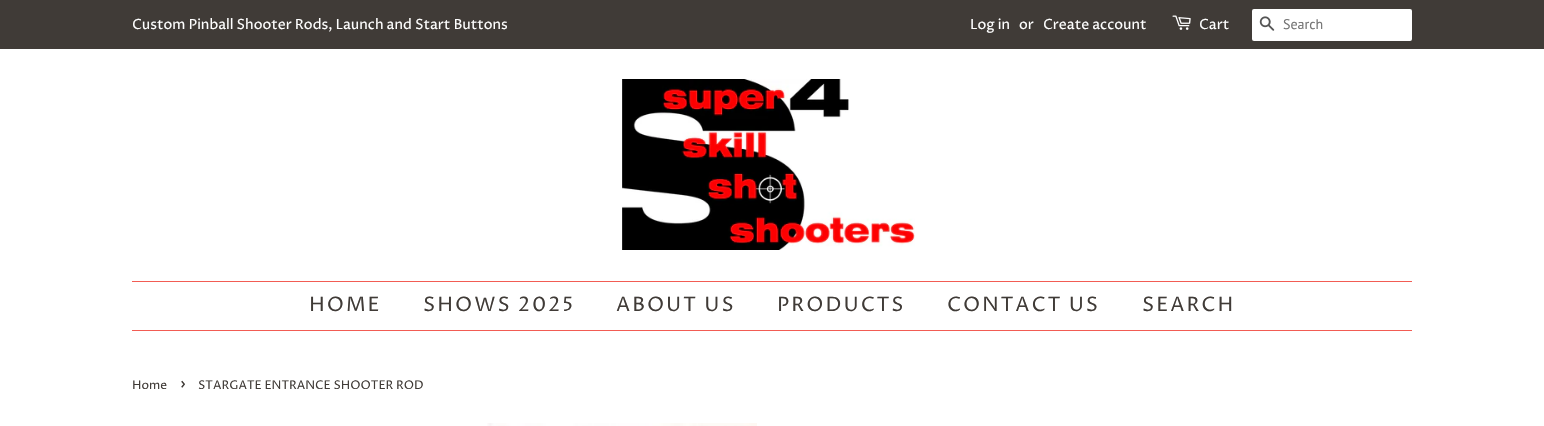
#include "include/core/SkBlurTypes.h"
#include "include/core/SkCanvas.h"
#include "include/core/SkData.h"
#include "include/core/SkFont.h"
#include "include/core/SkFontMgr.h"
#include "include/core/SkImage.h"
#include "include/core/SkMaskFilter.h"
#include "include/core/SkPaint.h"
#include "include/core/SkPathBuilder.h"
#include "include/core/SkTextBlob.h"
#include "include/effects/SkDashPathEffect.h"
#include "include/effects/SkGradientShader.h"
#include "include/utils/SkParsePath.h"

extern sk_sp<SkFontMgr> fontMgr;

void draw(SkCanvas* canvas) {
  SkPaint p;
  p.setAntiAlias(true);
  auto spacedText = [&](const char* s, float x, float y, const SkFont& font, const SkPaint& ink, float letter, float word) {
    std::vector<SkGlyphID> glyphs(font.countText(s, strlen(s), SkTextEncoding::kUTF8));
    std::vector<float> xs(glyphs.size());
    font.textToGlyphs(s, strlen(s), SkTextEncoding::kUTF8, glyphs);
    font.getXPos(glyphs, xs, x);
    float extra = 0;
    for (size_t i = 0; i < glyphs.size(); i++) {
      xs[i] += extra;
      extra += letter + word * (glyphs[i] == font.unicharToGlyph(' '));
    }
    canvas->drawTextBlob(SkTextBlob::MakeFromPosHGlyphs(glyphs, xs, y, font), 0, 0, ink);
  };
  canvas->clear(SK_ColorWHITE);
  p.setColor(SkColorSetRGB(64, 59, 55));
  canvas->drawRect(SkRect::MakeLTRB(0, 0, 1544, 49), p);
  canvas->drawImageRect(SkImages::DeferredFromEncodedData(SkData::MakeFromFileName("images/1.png")), SkRect::MakeLTRB(1172, 15, 1191, 30), SkSamplingOptions());
  p.setColor(SK_ColorWHITE);
  canvas->drawRoundRect(SkRect::MakeLTRB(1252, 9, 1412, 41), 2, 2, p);
  canvas->drawImageRect(SkImages::DeferredFromEncodedData(SkData::MakeFromFileName("images/2.png")), SkRect::MakeLTRB(1259, 16, 1275, 31), SkSamplingOptions());
  canvas->drawImageRect(SkImages::DeferredFromEncodedData(SkData::MakeFromFileName("images/3.png")), SkRect::MakeLTRB(622, 79, 915, 250), SkSamplingOptions());
  p.setColor(SkColorSetRGB(242, 92, 84));
  canvas->drawRect(SkRect::MakeLTRB(132, 281, 1412, 282), p);
  canvas->drawRect(SkRect::MakeLTRB(132, 330, 1412, 331), p);
  canvas->drawImageRect(SkImages::DeferredFromEncodedData(SkData::MakeFromFileName("images/4.png")), SkRect::MakeLTRB(487, 423, 757, 426), SkSamplingOptions());
  SkFont font1(fontMgr->matchFamilyStyle("Proza Libre", SkFontStyle::Normal()), 14);
  font1.setSubpixel(true);
  p.setColor(SK_ColorWHITE);
  canvas->drawString("Custom Pinball Shooter Rods, Launch and Start Buttons", 132, 29, font1, p);
  canvas->drawString("Log in", 970, 29, font1, p);
  canvas->drawString("or", 1019, 29, font1, p);
  canvas->drawString("Create account", 1043, 29, font1, p);
  canvas->drawString("Cart", 1199, 29, font1, p);
  SkFont font2(fontMgr->matchFamilyStyle("PT Sans", SkFontStyle::Normal()), 14);
  font2.setSubpixel(true);
  p.setColor(SkColorSetRGB(117, 117, 117));
  canvas->drawString("Search", 1283, 29, font2, p);
  SkFont font3(fontMgr->matchFamilyStyle("Proza Libre", SkFontStyle::Normal()), 20);
  font3.setSubpixel(true);
  p.setColor(SkColorSetRGB(64, 59, 55));
  spacedText("HOME", 309, 311, font3, p, 2, 0);
  spacedText("SHOWS 2025", 423, 311, font3, p, 2, 0);
  spacedText("ABOUT US", 616, 311, font3, p, 2, 0);
  spacedText("PRODUCTS", 777, 311, font3, p, 2, 0);
  spacedText("CONTACT US", 947, 311, font3, p, 2, 0);
  spacedText("SEARCH", 1142, 311, font3, p, 2, 0);
  SkFont font4(fontMgr->matchFamilyStyle("Proza Libre", SkFontStyle::Normal()), 12);
  font4.setSubpixel(true);
  canvas->drawString("Home", 132, 389, font4, p);
  SkFont font5(fontMgr->matchFamilyStyle("Proza Libre", SkFontStyle::Normal()), 17);
  font5.setSubpixel(true);
  canvas->drawString("›", 180, 389, font5, p);
  canvas->drawString("STARGATE ENTRANCE SHOOTER ROD", 198, 389, font4, p);
}
